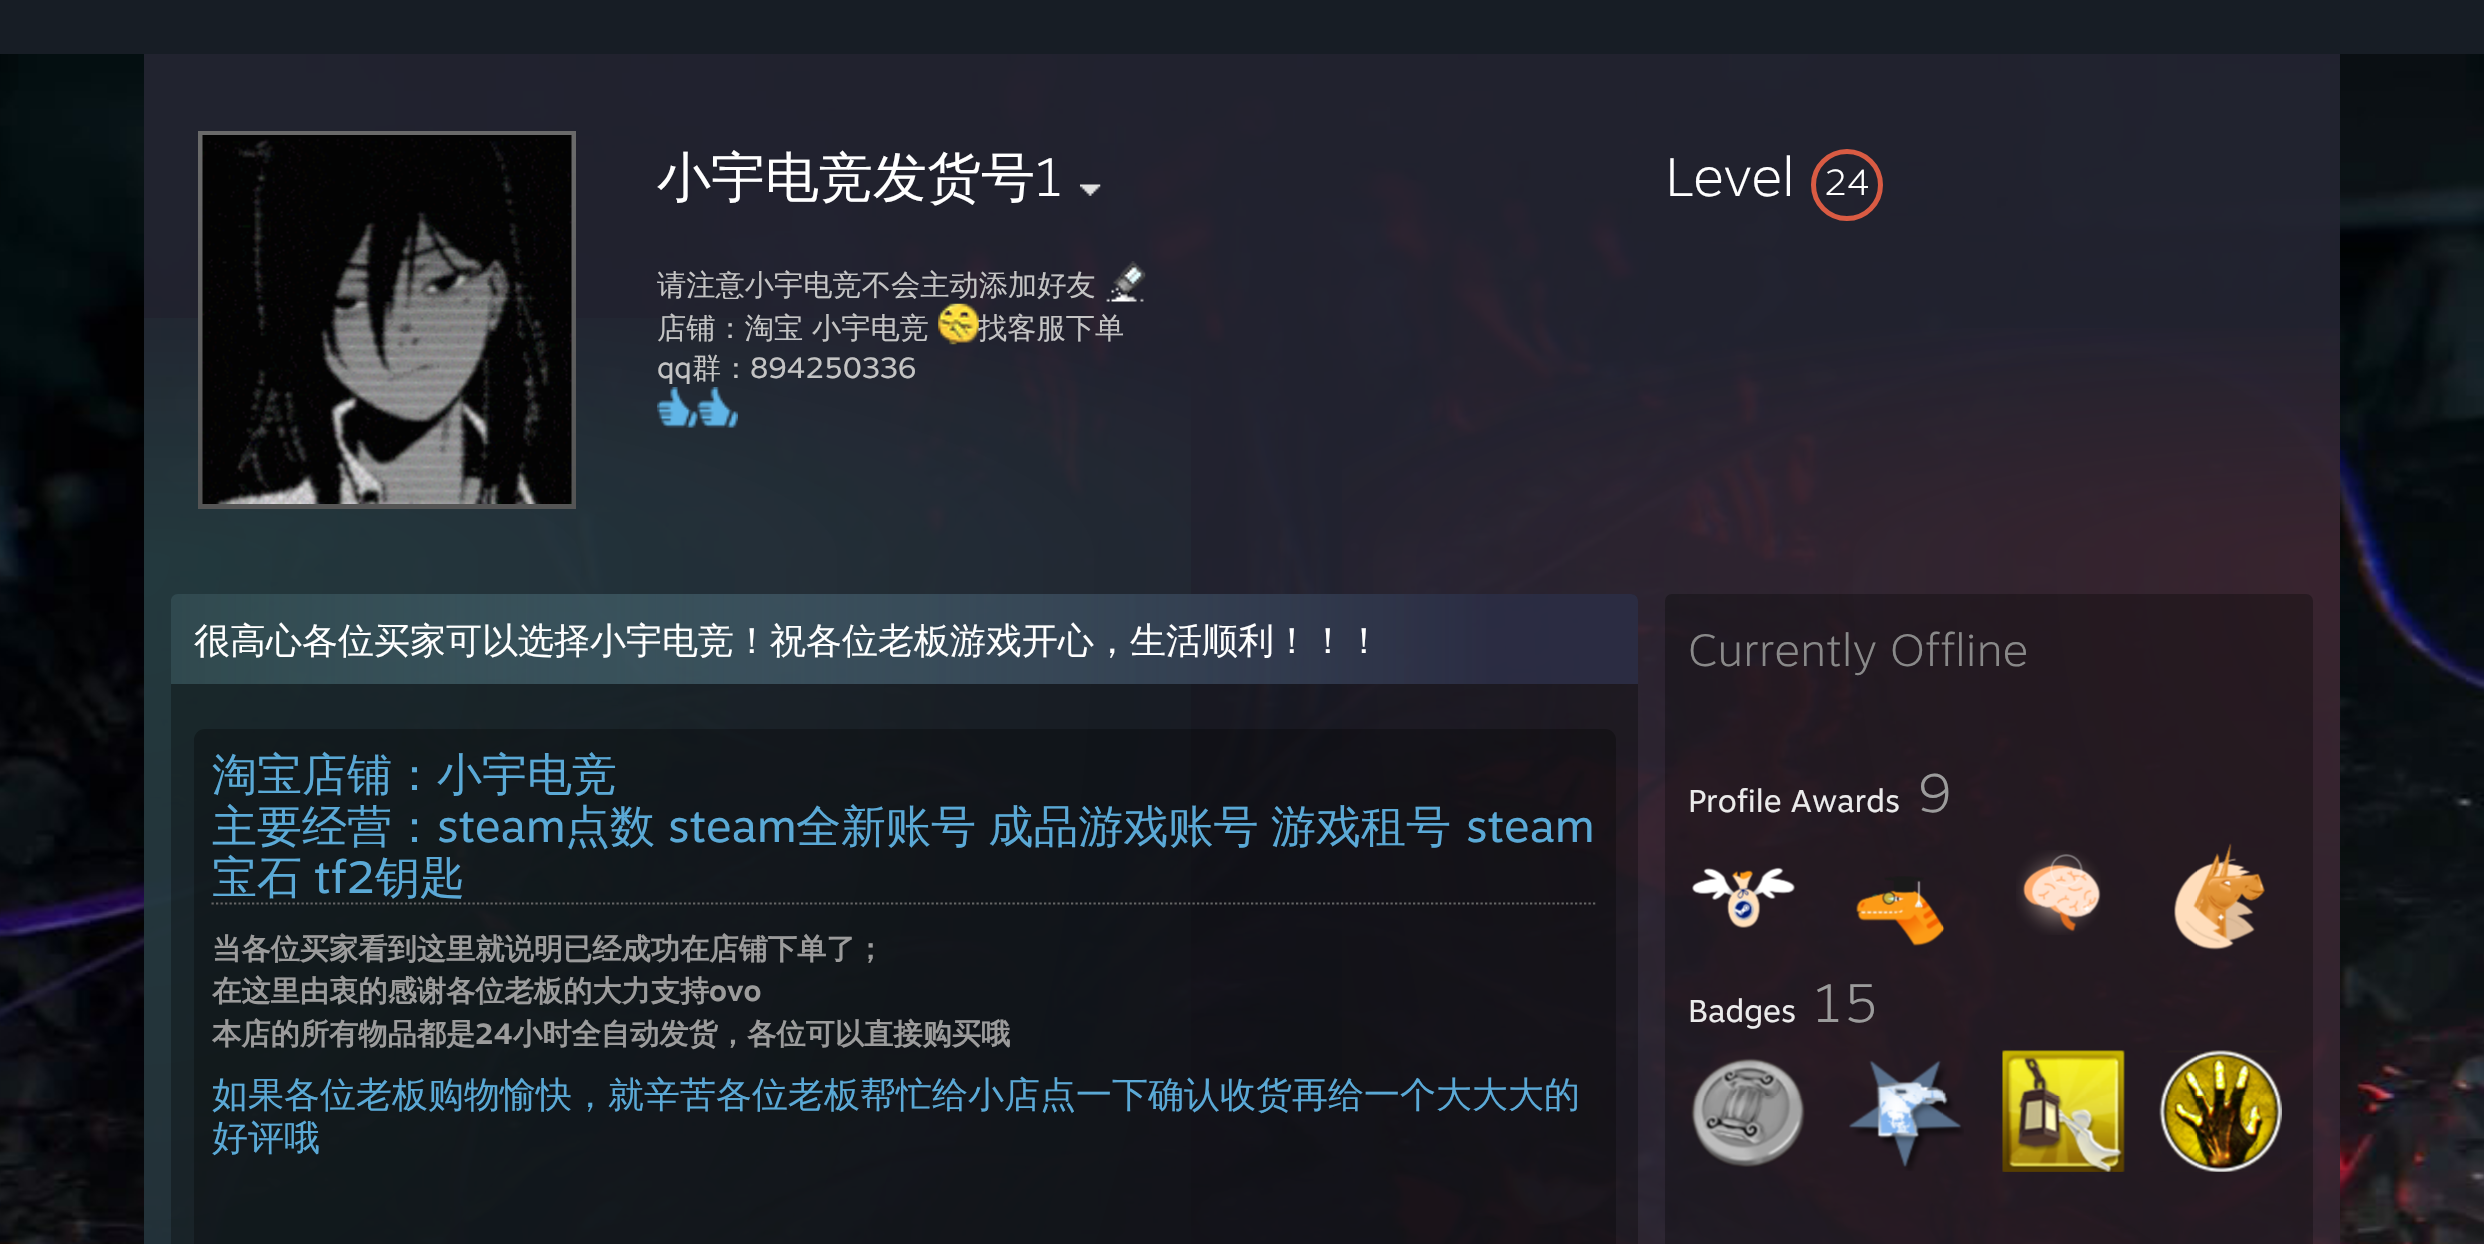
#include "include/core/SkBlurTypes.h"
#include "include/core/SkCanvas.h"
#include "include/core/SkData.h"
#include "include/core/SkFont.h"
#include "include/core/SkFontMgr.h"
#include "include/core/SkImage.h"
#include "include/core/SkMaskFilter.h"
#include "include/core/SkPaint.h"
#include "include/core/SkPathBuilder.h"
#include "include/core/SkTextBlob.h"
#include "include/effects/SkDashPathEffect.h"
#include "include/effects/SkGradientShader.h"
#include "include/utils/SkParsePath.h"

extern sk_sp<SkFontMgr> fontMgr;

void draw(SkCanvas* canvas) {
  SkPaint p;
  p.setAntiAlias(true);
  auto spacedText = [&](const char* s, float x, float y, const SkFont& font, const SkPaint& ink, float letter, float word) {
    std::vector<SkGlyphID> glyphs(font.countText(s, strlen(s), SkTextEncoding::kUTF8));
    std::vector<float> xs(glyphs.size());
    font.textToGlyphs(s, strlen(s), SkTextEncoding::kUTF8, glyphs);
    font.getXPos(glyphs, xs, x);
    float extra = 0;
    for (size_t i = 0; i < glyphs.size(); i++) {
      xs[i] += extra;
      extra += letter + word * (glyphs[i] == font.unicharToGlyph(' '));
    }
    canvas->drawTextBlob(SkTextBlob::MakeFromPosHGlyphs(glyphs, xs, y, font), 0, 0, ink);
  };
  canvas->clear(SkColorSetRGB(23, 29, 37));
  canvas->drawImageRect(SkImages::DeferredFromEncodedData(SkData::MakeFromFileName("images/1.png")), SkRect::MakeLTRB(0, 54, 2484, 1244), SkSamplingOptions());
  p.setColor(SkColorSetARGB(237, 34, 35, 48));
  canvas->drawRect(SkRect::MakeLTRB(144, 54, 2340, 558), p);
  {
    const SkColor colors[] = {SkColorSetARGB(26, 50, 255, 193), SkColorSetARGB(0, 50, 255, 193)};
    const float stops[] = {0, 0.43f};
    SkMatrix m = SkMatrix::Translate(144, 558).preScale(3106, 713);
    p.setShader(SkGradientShader::MakeRadial({0, 0}, 1, colors, stops, 2, SkTileMode::kClamp, 0, &m));
    p.setAlpha(255);
  }
  canvas->drawRect(SkRect::MakeLTRB(144, 318, 1191, 558), p);
  {
    const SkColor colors[] = {SkColorSetARGB(77, 109, 38, 44), SkColorSetARGB(0, 109, 38, 44)};
    const float stops[] = {0, 0.51f};
    SkMatrix m = SkMatrix::Translate(2340, 558).preScale(2196, 504);
    p.setShader(SkGradientShader::MakeRadial({0, 0}, 1, colors, stops, 2, SkTileMode::kClamp, 0, &m));
    p.setAlpha(255);
  }
  canvas->drawRect(SkRect::MakeLTRB(1342, 328, 2340, 558), p);
  {
    const SkColor colors[] = {SkColorSetRGB(106, 106, 106), SkColorSetRGB(85, 85, 85)};
    const float stops[] = {0.05f, 0.95f};
    const SkPoint ends[] = {{387, 130}, {387, 509}};
    p.setShader(SkGradientShader::MakeLinear(ends, colors, stops, 2, SkTileMode::kClamp));
    p.setAlpha(255);
  }
  canvas->drawRect(SkRect::MakeLTRB(198, 131, 576, 509), p);
  canvas->drawImageRect(SkImages::DeferredFromEncodedData(SkData::MakeFromFileName("images/2.png")), SkRect::MakeLTRB(202, 135, 572, 504), SkSamplingOptions());
  canvas->drawImageRect(SkImages::DeferredFromEncodedData(SkData::MakeFromFileName("images/3.png")), SkRect::MakeLTRB(1080, 184, 1101, 196), SkSamplingOptions());
  canvas->drawImageRect(SkImages::DeferredFromEncodedData(SkData::MakeFromFileName("images/4.png")), SkRect::MakeLTRB(1106, 261, 1146, 302), SkSamplingOptions());
  canvas->drawImageRect(SkImages::DeferredFromEncodedData(SkData::MakeFromFileName("images/5.png")), SkRect::MakeLTRB(938, 303, 979, 345), SkSamplingOptions());
  canvas->drawImageRect(SkImages::DeferredFromEncodedData(SkData::MakeFromFileName("images/6.png")), SkRect::MakeLTRB(657, 387, 698, 428), SkSamplingOptions());
  canvas->drawImageRect(SkImages::DeferredFromEncodedData(SkData::MakeFromFileName("images/7.png")), SkRect::MakeLTRB(697, 387, 738, 428), SkSamplingOptions());
  p.setStyle(SkPaint::kStroke_Style);
  p.setStrokeWidth(5);
  p.setShader(nullptr);
  p.setColor(SkColorSetRGB(217, 91, 67));
  canvas->drawCircle(1847, 185, 33.5f, p);
  p.setStyle(SkPaint::kFill_Style);
  p.setColor(SkColorSetARGB(237, 34, 35, 48));
  canvas->drawRect(SkRect::MakeLTRB(144, 558, 2340, 1244), p);
  {
    const SkColor colors[] = {SkColorSetARGB(26, 50, 255, 193), SkColorSetARGB(0, 50, 255, 193)};
    const float stops[] = {0, 0.43f};
    SkMatrix m = SkMatrix::Translate(144, 558).preScale(3106, 4713);
    p.setShader(SkGradientShader::MakeRadial({0, 0}, 1, colors, stops, 2, SkTileMode::kClamp, 0, &m));
    p.setAlpha(255);
  }
  canvas->drawRect(SkRect::MakeLTRB(144, 558, 1191, 1244), p);
  {
    const SkColor colors[] = {SkColorSetARGB(77, 109, 38, 44), SkColorSetARGB(0, 109, 38, 44)};
    const float stops[] = {0, 0.51f};
    SkMatrix m = SkMatrix::Translate(2340, 558).preScale(2196, 3332);
    p.setShader(SkGradientShader::MakeRadial({0, 0}, 1, colors, stops, 2, SkTileMode::kClamp, 0, &m));
    p.setAlpha(255);
  }
  canvas->drawRect(SkRect::MakeLTRB(1342, 558, 2340, 1244), p);
  p.setShader(nullptr);
  p.setColor(SkColorSetARGB(77, 0, 0, 0));
  canvas->drawRoundRect(SkRect::MakeLTRB(171, 594, 1638, 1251), 7, 7, p);
  {
    const SkColor colors[] = {SkColorSetARGB(64, 115, 173, 184), SkColorSetARGB(237, 43, 45, 68)};
    const float stops[] = {0, 0.9f};
    const SkPoint ends[] = {{171, 639}, {1638, 639}};
    p.setShader(SkGradientShader::MakeLinear(ends, colors, stops, 2, SkTileMode::kClamp));
    p.setAlpha(255);
  }
  canvas->drawPath(SkPathBuilder().moveTo(178, 594).lineTo(1631, 594).cubicTo(1635, 594, 1638, 597, 1638, 601).lineTo(1638, 684).lineTo(171, 684).lineTo(171, 601).cubicTo(171, 597, 174, 594, 178, 594).close().detach(), p);
  p.setShader(nullptr);
  p.setColor(SkColorSetARGB(77, 0, 0, 0));
  canvas->drawRoundRect(SkRect::MakeLTRB(194, 729, 1616, 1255), 11, 11, p);
  p.setStyle(SkPaint::kStroke_Style);
  p.setStrokeWidth(2.2f);
  p.setColor(SkColorSetRGB(102, 102, 102));
  p.setPathEffect(SkDashPathEffect::Make({{2.25f, 2.25f}}, 0));
  canvas->drawPath(SkPathBuilder().moveTo(211.5f, 903.5f).lineTo(1597.5f, 903.5f).detach(), p);
  p.setPathEffect(nullptr);
  p.setStyle(SkPaint::kFill_Style);
  p.setColor(SkColorSetARGB(77, 0, 0, 0));
  canvas->drawRoundRect(SkRect::MakeLTRB(1665, 594, 2313, 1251), 7, 7, p);
  canvas->drawImageRect(SkImages::DeferredFromEncodedData(SkData::MakeFromFileName("images/8.png")), SkRect::MakeLTRB(1692, 867, 1795, 928), SkSamplingOptions());
  canvas->drawImageRect(SkImages::DeferredFromEncodedData(SkData::MakeFromFileName("images/9.png")), SkRect::MakeLTRB(1856, 876, 1945, 946), SkSamplingOptions());
  canvas->drawImageRect(SkImages::DeferredFromEncodedData(SkData::MakeFromFileName("images/10.png")), SkRect::MakeLTRB(2016, 850, 2101, 935), SkSamplingOptions());
  canvas->drawImageRect(SkImages::DeferredFromEncodedData(SkData::MakeFromFileName("images/11.png")), SkRect::MakeLTRB(2174, 843, 2265, 950), SkSamplingOptions());
  canvas->drawImageRect(SkImages::DeferredFromEncodedData(SkData::MakeFromFileName("images/12.png")), SkRect::MakeLTRB(1691, 1058, 1805, 1167), SkSamplingOptions());
  canvas->drawImageRect(SkImages::DeferredFromEncodedData(SkData::MakeFromFileName("images/13.png")), SkRect::MakeLTRB(1849, 1060, 1964, 1171), SkSamplingOptions());
  canvas->drawImageRect(SkImages::DeferredFromEncodedData(SkData::MakeFromFileName("images/14.png")), SkRect::MakeLTRB(2002, 1050, 2125, 1172), SkSamplingOptions());
  canvas->drawImageRect(SkImages::DeferredFromEncodedData(SkData::MakeFromFileName("images/15.png")), SkRect::MakeLTRB(2159, 1050, 2282, 1172), SkSamplingOptions());
  SkFont font1(fontMgr->matchFamilyStyle("WenQuanYi Zen Hei", SkFontStyle(500, SkFontStyle::kNormal_Width, SkFontStyle::kUpright_Slant)), 54);
  font1.setSubpixel(true);
  p.setColor(SK_ColorWHITE);
  canvas->drawString("小宇电竞发货号", 657, 196, font1, p);
  SkFont font2(fontMgr->matchFamilyStyle("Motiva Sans", SkFontStyle(100, SkFontStyle::kNormal_Width, SkFontStyle::kUpright_Slant)), 54);
  font2.setSubpixel(true);
  canvas->drawString("1", 1035, 196, font2, p);
  SkFont font3(fontMgr->matchFamilyStyle("WenQuanYi Zen Hei", SkFontStyle(500, SkFontStyle::kNormal_Width, SkFontStyle::kUpright_Slant)), 29.25f);
  font3.setSubpixel(true);
  p.setColor(SkColorSetRGB(196, 196, 196));
  canvas->drawString("请注意小宇电竞不会主动添加好友", 657, 295, font3, p);
  canvas->drawString("店铺：淘宝 小宇电竞", 657, 338, font3, p);
  canvas->drawString("找客服下单", 978, 338, font3, p);
  SkFont font4(fontMgr->matchFamilyStyle("Motiva Sans", SkFontStyle::Normal()), 29.25f);
  font4.setSubpixel(true);
  canvas->drawString("qq", 657, 378, font4, p);
  canvas->drawString("群：", 692, 378, font3, p);
  canvas->drawString("894250336", 750, 378, font4, p);
  p.setColor(SK_ColorWHITE);
  canvas->drawString("Level", 1665, 196, font2, p);
  SkFont font5(fontMgr->matchFamilyStyle("Motiva Sans", SkFontStyle(100, SkFontStyle::kNormal_Width, SkFontStyle::kUpright_Slant)), 36);
  font5.setSubpixel(true);
  canvas->drawString("24", 1824, 195, font5, p);
  SkFont font6(fontMgr->matchFamilyStyle("WenQuanYi Zen Hei", SkFontStyle(500, SkFontStyle::kNormal_Width, SkFontStyle::kUpright_Slant)), 36);
  font6.setSubpixel(true);
  canvas->drawString("很高心各位买家可以选择小宇电竞！祝各位老板游戏开心，生活顺利！！！", 194, 653, font6, p);
  SkFont font7(fontMgr->matchFamilyStyle("WenQuanYi Zen Hei", SkFontStyle(500, SkFontStyle::kNormal_Width, SkFontStyle::kUpright_Slant)), 45);
  font7.setSubpixel(true);
  p.setColor(SkColorSetRGB(90, 169, 214));
  canvas->drawString("淘宝店铺：小宇电竞", 212, 790, font7, p);
  canvas->drawString("主要经营：", 212, 842, font7, p);
  SkFont font8(fontMgr->matchFamilyStyle("Motiva Sans", SkFontStyle::Normal()), 45);
  font8.setSubpixel(true);
  canvas->drawString("steam", 437, 842, font8, p);
  canvas->drawString("点数", 565, 842, font7, p);
  canvas->drawString("steam", 668, 842, font8, p);
  spacedText("全新账号 成品游戏账号 游戏租号", 796, 842, font7, p, 0, -1);
  canvas->drawString("steam", 1466, 842, font8, p);
  canvas->drawString("宝石", 212, 893, font7, p);
  canvas->drawString("tf2", 314, 893, font8, p);
  canvas->drawString("钥匙", 375, 893, font7, p);
  SkFont font9(fontMgr->matchFamilyStyle("WenQuanYi Zen Hei", SkFontStyle::Bold()), 29.25f);
  font9.setSubpixel(true);
  p.setColor(SkColorSetRGB(155, 155, 155));
  canvas->drawString("当各位买家看到这里就说明已经成功在店铺下单了；", 212, 959, font9, p);
  canvas->drawString("在这里由衷的感谢各位老板的大力支持", 212, 1001, font9, p);
  SkFont font10(fontMgr->matchFamilyStyle("Motiva Sans", SkFontStyle::Bold()), 29.25f);
  font10.setSubpixel(true);
  canvas->drawString("ovo", 709, 1001, font10, p);
  canvas->drawString("本店的所有物品都是", 212, 1044, font9, p);
  canvas->drawString("24", 475, 1044, font10, p);
  canvas->drawString("小时全自动发货，各位可以直接购买哦", 513, 1044, font9, p);
  p.setColor(SkColorSetRGB(90, 169, 214));
  canvas->drawString("如果各位老板购物愉快，就辛苦各位老板帮忙给小店点一下确认收货再给一个大大大的", 212, 1107, font6, p);
  canvas->drawString("好评哦", 212, 1150, font6, p);
  SkFont font11(fontMgr->matchFamilyStyle("Motiva Sans", SkFontStyle(100, SkFontStyle::kNormal_Width, SkFontStyle::kUpright_Slant)), 45);
  font11.setSubpixel(true);
  p.setColor(SkColorSetRGB(137, 137, 137));
  canvas->drawString("Currently Offline", 1688, 666, font11, p);
  SkFont font12(fontMgr->matchFamilyStyle("Motiva Sans", SkFontStyle::Normal()), 31.5f);
  font12.setSubpixel(true);
  p.setColor(SkColorSetRGB(235, 235, 235));
  canvas->drawString("Profile Awards", 1688, 812, font12, p);
  p.setColor(SkColorSetRGB(155, 155, 155));
  canvas->drawString("9", 1918, 812, font2, p);
  p.setColor(SkColorSetRGB(235, 235, 235));
  canvas->drawString("Badges", 1688, 1022, font12, p);
  p.setColor(SkColorSetRGB(155, 155, 155));
  canvas->drawString("15", 1814, 1022, font2, p);
}
